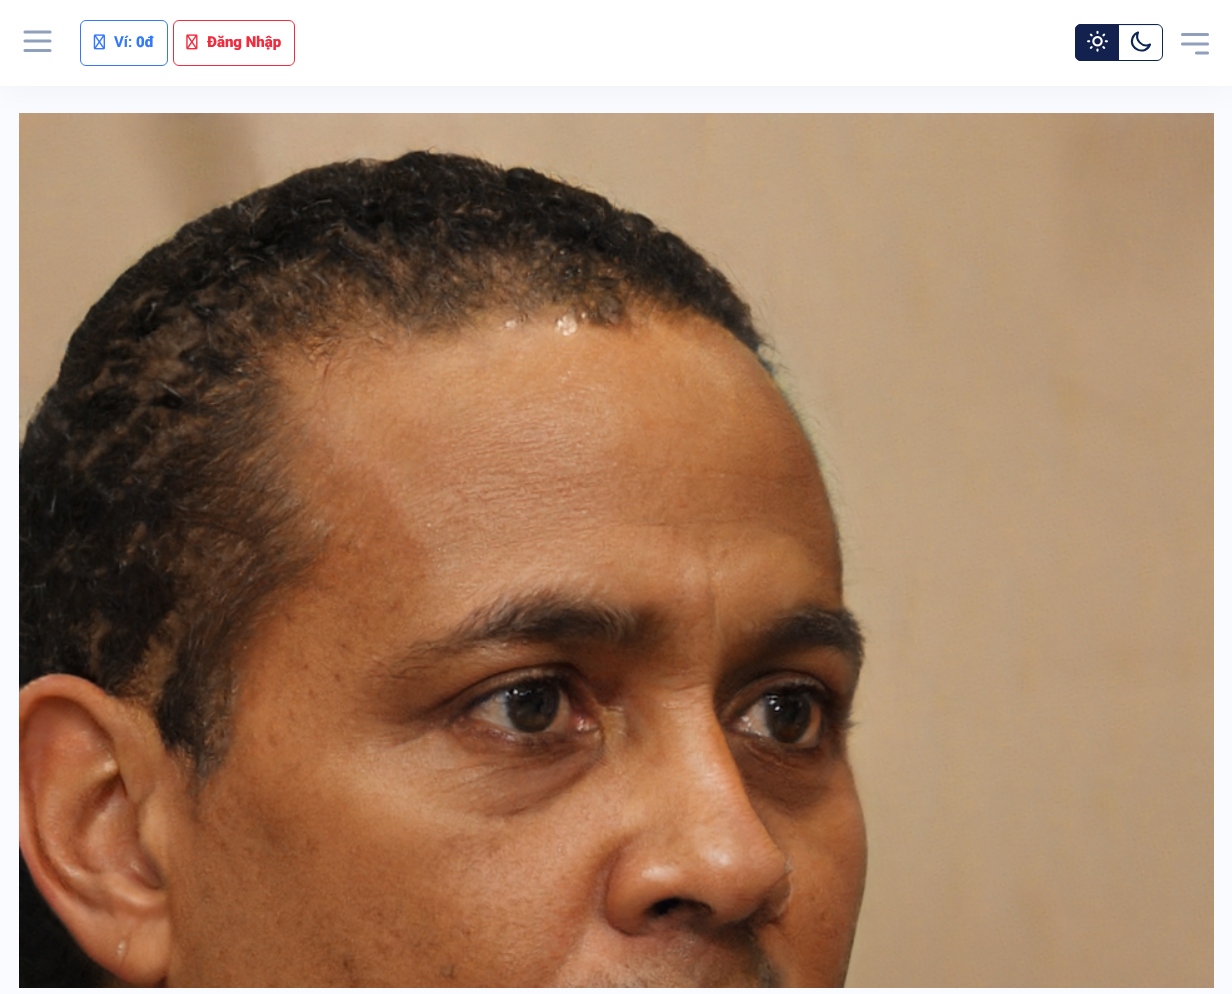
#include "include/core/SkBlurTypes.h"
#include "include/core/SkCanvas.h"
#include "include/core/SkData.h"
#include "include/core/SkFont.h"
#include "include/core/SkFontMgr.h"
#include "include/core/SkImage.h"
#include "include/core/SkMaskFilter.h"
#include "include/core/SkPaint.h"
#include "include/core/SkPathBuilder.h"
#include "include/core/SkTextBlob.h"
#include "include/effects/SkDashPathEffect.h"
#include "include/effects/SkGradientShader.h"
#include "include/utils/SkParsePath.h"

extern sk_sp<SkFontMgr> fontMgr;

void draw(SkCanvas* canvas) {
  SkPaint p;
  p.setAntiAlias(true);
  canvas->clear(SkColorSetRGB(249, 251, 254));
  canvas->drawImageRect(SkImages::DeferredFromEncodedData(SkData::MakeFromFileName("images/4.png")), SkRect::MakeLTRB(19, 113, 1214, 988), SkSamplingOptions());
  p.setColor(SkColorSetARGB(13, 12, 37, 86));
  p.setMaskFilter(SkMaskFilter::MakeBlur(kNormal_SkBlurStyle, 19));
  canvas->drawRect(SkRect::MakeLTRB(0, 0, 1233, 86), p);
  p.setMaskFilter(nullptr);
  p.setColor(SK_ColorWHITE);
  canvas->drawRect(SkRect::MakeLTRB(0, 0, 1232, 86), p);
  p.setStyle(SkPaint::kStroke_Style);
  p.setStrokeWidth(3.1f);
  p.setStrokeCap(SkPaint::kRound_Cap);
  p.setStrokeJoin(SkPaint::kRound_Join);
  p.setColor(SkColorSetRGB(143, 159, 188));
  canvas->drawPath(SkPathBuilder().moveTo(25, 32).lineTo(50, 32).moveTo(25, 41).lineTo(50, 41).moveTo(25, 50.5f).lineTo(50, 50.5f).detach(), p);
  p.setStrokeWidth(1);
  p.setStrokeCap(SkPaint::kButt_Cap);
  p.setStrokeJoin(SkPaint::kMiter_Join);
  p.setColor(SkColorSetRGB(51, 120, 255));
  canvas->drawRoundRect(SkRect::MakeLTRB(80.5f, 20.5f, 167.5f, 65.5f), 5.5f, 5.5f, p);
  canvas->drawImageRect(SkImages::DeferredFromEncodedData(SkData::MakeFromFileName("images/1.png")), SkRect::MakeLTRB(93, 34, 105, 50), SkSamplingOptions());
  p.setColor(SkColorSetRGB(244, 43, 61));
  canvas->drawRoundRect(SkRect::MakeLTRB(173.5f, 20.5f, 294.5f, 65.5f), 5.5f, 5.5f, p);
  canvas->drawImageRect(SkImages::DeferredFromEncodedData(SkData::MakeFromFileName("images/2.png")), SkRect::MakeLTRB(186, 34, 198, 50), SkSamplingOptions());
  p.setStyle(SkPaint::kFill_Style);
  p.setColor(SkColorSetRGB(236, 236, 236));
  canvas->drawPath(SkPathBuilder().moveTo(1081, 26).lineTo(1156, 26).cubicTo(1159, 26, 1161, 28, 1161, 31).cubicTo(1161, 22, 1149, 25, 1144, 25).lineTo(1094, 25).cubicTo(1088, 25, 1076, 22, 1076, 31).cubicTo(1076, 28, 1078, 26, 1081, 26).close().detach(), p);
  p.setStyle(SkPaint::kStroke_Style);
  p.setColor(SkColorSetRGB(12, 37, 86));
  canvas->drawRoundRect(SkRect::MakeLTRB(1075.5f, 24.5f, 1162.5f, 60.5f), 5.5f, 5.5f, p);
  p.setStyle(SkPaint::kFill_Style);
  p.setColor(SkColorSetRGB(18, 33, 78));
  canvas->drawPath(SkPathBuilder().moveTo(1081, 24).lineTo(1119, 24).lineTo(1119, 61).lineTo(1081, 61).cubicTo(1077.5f, 61, 1075, 58.5f, 1075, 55).lineTo(1075, 30).cubicTo(1075, 26.5f, 1077.5f, 24, 1081, 24).close().detach(), p);
  canvas->drawImageRect(SkImages::DeferredFromEncodedData(SkData::MakeFromFileName("images/3.png")), SkRect::MakeLTRB(1087, 30, 1108, 52), SkSamplingOptions());
  p.setStyle(SkPaint::kStroke_Style);
  p.setStrokeWidth(2.1f);
  p.setStrokeCap(SkPaint::kRound_Cap);
  p.setStrokeJoin(SkPaint::kRound_Join);
  p.setColor(SkColorSetRGB(12, 37, 86));
  canvas->drawPath(SkPathBuilder().moveTo(1150, 44.5f).cubicTo(1142.5f, 48, 1134.5f, 40, 1138, 32.5f).cubicTo(1135, 33.5f, 1133.5f, 35.5f, 1132.5f, 38).cubicTo(1128.5f, 49.5f, 1145.5f, 56, 1150, 44.5f).close().detach(), p);
  p.setStrokeWidth(3.1f);
  p.setColor(SkColorSetRGB(143, 159, 188));
  canvas->drawPath(SkPathBuilder().moveTo(1182.5f, 34.5f).lineTo(1207.5f, 34.5f).moveTo(1182.5f, 44).lineTo(1207.5f, 44).moveTo(1196.5f, 53).lineTo(1207.5f, 53).detach(), p);
  SkFont font1(fontMgr->matchFamilyStyle("Roboto", SkFontStyle::Bold()), 15);
  font1.setSubpixel(true);
  p.setStyle(SkPaint::kFill_Style);
  p.setColor(SkColorSetRGB(51, 120, 255));
  canvas->drawString("Ví:", 114, 47, font1, p);
  SkFont font2(fontMgr->matchFamilyStyle("Roboto", SkFontStyle(900, SkFontStyle::kNormal_Width, SkFontStyle::kUpright_Slant)), 15);
  font2.setSubpixel(true);
  canvas->drawString("0đ", 136, 47, font2, p);
  p.setColor(SkColorSetRGB(244, 43, 61));
  canvas->drawString("Đăng Nhập", 207, 47, font2, p);
}
